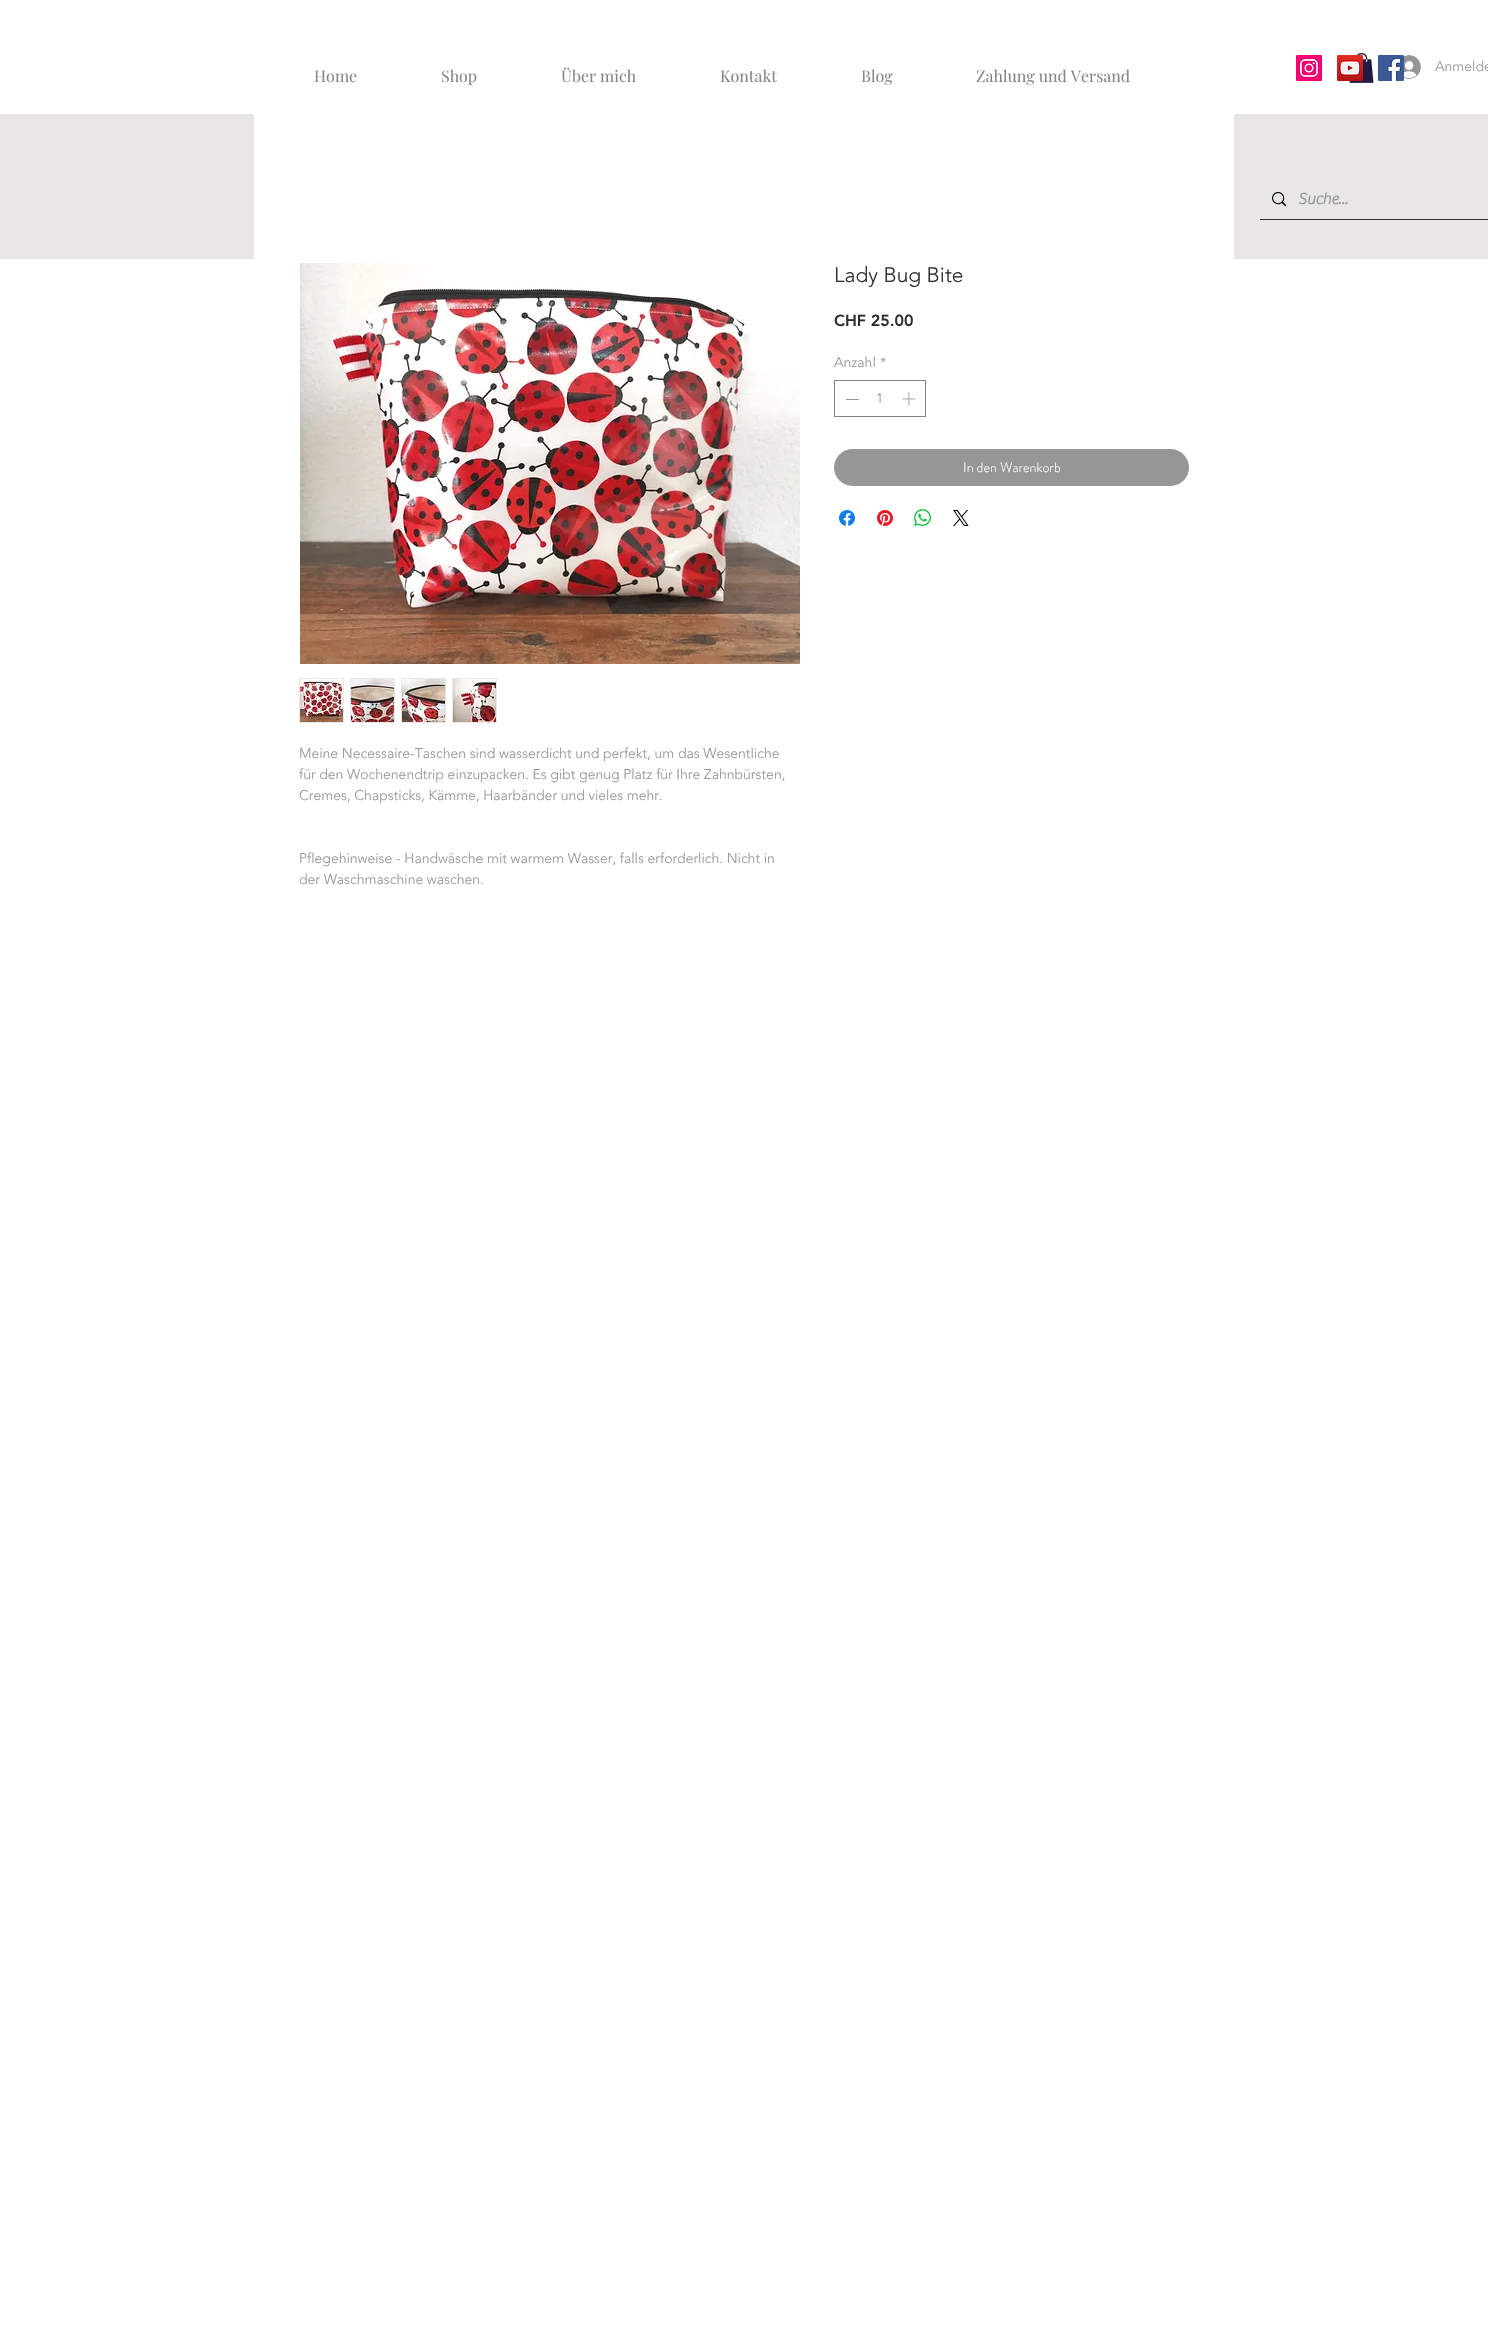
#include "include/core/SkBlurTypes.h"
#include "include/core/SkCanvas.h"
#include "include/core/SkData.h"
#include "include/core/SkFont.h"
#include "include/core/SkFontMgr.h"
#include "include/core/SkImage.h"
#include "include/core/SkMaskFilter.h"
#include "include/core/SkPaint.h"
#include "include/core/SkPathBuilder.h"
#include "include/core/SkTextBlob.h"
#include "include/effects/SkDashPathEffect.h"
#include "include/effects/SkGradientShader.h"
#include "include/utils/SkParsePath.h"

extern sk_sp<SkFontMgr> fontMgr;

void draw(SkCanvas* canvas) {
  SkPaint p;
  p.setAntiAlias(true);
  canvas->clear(SK_ColorWHITE);
  canvas->drawImageRect(SkImages::DeferredFromEncodedData(SkData::MakeFromFileName("images/1.png")), SkRect::MakeLTRB(1296, 55, 1322, 81), SkSamplingOptions());
  canvas->drawImageRect(SkImages::DeferredFromEncodedData(SkData::MakeFromFileName("images/4.png")), SkRect::MakeLTRB(1349, 53, 1374, 83), SkSamplingOptions());
  canvas->drawImageRect(SkImages::DeferredFromEncodedData(SkData::MakeFromFileName("images/2.png")), SkRect::MakeLTRB(1337, 55, 1363, 81), SkSamplingOptions());
  canvas->drawImageRect(SkImages::DeferredFromEncodedData(SkData::MakeFromFileName("images/5.png")), SkRect::MakeLTRB(1403, 55, 1421, 79), SkSamplingOptions());
  canvas->drawImageRect(SkImages::DeferredFromEncodedData(SkData::MakeFromFileName("images/3.png")), SkRect::MakeLTRB(1378, 55, 1404, 81), SkSamplingOptions());
  p.setColor(SkColorSetRGB(232, 230, 230));
  canvas->drawRect(SkRect::MakeLTRB(0, 114, 1488, 259), p);
  p.setColor(SkColorSetRGB(50, 50, 50));
  canvas->drawRect(SkRect::MakeLTRB(1260, 219, 1488, 220), p);
  canvas->drawImageRect(SkImages::DeferredFromEncodedData(SkData::MakeFromFileName("images/6.png")), SkRect::MakeLTRB(1272, 192, 1286, 207), SkSamplingOptions());
  p.setColor(SK_ColorWHITE);
  canvas->drawRect(SkRect::MakeLTRB(254, 114, 1234, 259), p);
  p.setStyle(SkPaint::kStroke_Style);
  p.setStrokeWidth(1);
  p.setColor(SkColorSetRGB(130, 130, 130));
  canvas->drawRect(SkRect::MakeLTRB(834.5f, 380.5f, 925.5f, 416.5f), p);
  p.setStyle(SkPaint::kFill_Style);
  p.setColor(SkColorSetRGB(150, 150, 150));
  canvas->drawRect(SkRect::MakeLTRB(846, 399, 859, 400), p);
  canvas->drawImageRect(SkImages::DeferredFromEncodedData(SkData::MakeFromFileName("images/7.png")), SkRect::MakeLTRB(902, 392, 916, 406), SkSamplingOptions());
  canvas->drawRoundRect(SkRect::MakeLTRB(834, 449, 1189, 486), 18.5f, 18.5f, p);
  canvas->drawImageRect(SkImages::DeferredFromEncodedData(SkData::MakeFromFileName("images/8.png")), SkRect::MakeLTRB(839, 510, 855, 526), SkSamplingOptions());
  canvas->drawImageRect(SkImages::DeferredFromEncodedData(SkData::MakeFromFileName("images/9.png")), SkRect::MakeLTRB(877, 510, 893, 526), SkSamplingOptions());
  canvas->drawImageRect(SkImages::DeferredFromEncodedData(SkData::MakeFromFileName("images/10.png")), SkRect::MakeLTRB(914, 509, 931, 526), SkSamplingOptions());
  canvas->drawImageRect(SkImages::DeferredFromEncodedData(SkData::MakeFromFileName("images/11.png")), SkRect::MakeLTRB(953, 510, 969, 526), SkSamplingOptions());
  canvas->drawImageRect(SkImages::DeferredFromEncodedData(SkData::MakeFromFileName("images/12.png")), SkRect::MakeLTRB(300, 263, 800, 664), SkSamplingOptions());
  p.setColor(SkColorSetRGB(232, 230, 230));
  canvas->drawRect(SkRect::MakeLTRB(299, 678, 344, 723), p);
  canvas->drawImageRect(SkImages::DeferredFromEncodedData(SkData::MakeFromFileName("images/13.png")), SkRect::MakeLTRB(300, 679, 343, 722), SkSamplingOptions());
  canvas->drawRect(SkRect::MakeLTRB(350, 678, 395, 723), p);
  canvas->drawImageRect(SkImages::DeferredFromEncodedData(SkData::MakeFromFileName("images/14.png")), SkRect::MakeLTRB(351, 679, 394, 722), SkSamplingOptions());
  canvas->drawRect(SkRect::MakeLTRB(401, 678, 446, 723), p);
  canvas->drawImageRect(SkImages::DeferredFromEncodedData(SkData::MakeFromFileName("images/15.png")), SkRect::MakeLTRB(402, 679, 445, 722), SkSamplingOptions());
  canvas->drawRect(SkRect::MakeLTRB(452, 678, 497, 723), p);
  canvas->drawImageRect(SkImages::DeferredFromEncodedData(SkData::MakeFromFileName("images/16.png")), SkRect::MakeLTRB(453, 679, 496, 722), SkSamplingOptions());
  SkFont font1(fontMgr->matchFamilyStyle("Playfair Display", SkFontStyle::Normal()), 16);
  font1.setSubpixel(true);
  p.setColor(SkColorSetRGB(133, 133, 133));
  canvas->drawString("Home", 314, 82, font1, p);
  canvas->drawString("Shop", 441, 82, font1, p);
  canvas->drawString("Über mich", 561, 82, font1, p);
  canvas->drawString("Kontakt", 720, 82, font1, p);
  canvas->drawString("Blog", 861, 82, font1, p);
  canvas->drawString("Zahlung und Versand", 976, 82, font1, p);
  SkFont font2(fontMgr->matchFamilyStyle("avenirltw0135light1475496", SkFontStyle(300, SkFontStyle::kNormal_Width, SkFontStyle::kUpright_Slant)), 14);
  font2.setSubpixel(true);
  p.setColor(SkColorSetRGB(150, 150, 150));
  canvas->drawString("Anmelde", 1435, 71, font2, p);
  SkFont font3(fontMgr->matchFamilyStyle("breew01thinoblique", SkFontStyle::Bold()), 16);
  font3.setSubpixel(true);
  canvas->drawString("Suche...", 1298, 204, font3, p);
  SkFont font4(fontMgr->matchFamilyStyle("avenirltw0135light1475496", SkFontStyle(300, SkFontStyle::kNormal_Width, SkFontStyle::kUpright_Slant)), 21);
  font4.setSubpixel(true);
  p.setColor(SkColorSetRGB(46, 46, 46));
  canvas->drawString("Lady Bug Bite", 834, 282, font4, p);
  SkFont font5(fontMgr->matchFamilyStyle("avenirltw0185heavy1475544", SkFontStyle(900, SkFontStyle::kNormal_Width, SkFontStyle::kUpright_Slant)), 16);
  font5.setSubpixel(true);
  canvas->drawString("CHF 25.00", 834, 326, font5, p);
  p.setColor(SkColorSetRGB(150, 150, 150));
  canvas->drawString("Anzahl", 834, 367, font2, p);
  canvas->drawString("*", 880, 367, font2, p);
  canvas->drawString("1", 876, 403, font2, p);
  SkFont font6(fontMgr->matchFamilyStyle("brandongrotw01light", SkFontStyle(300, SkFontStyle::kNormal_Width, SkFontStyle::kUpright_Slant)), 14);
  font6.setSubpixel(true);
  p.setColor(SK_ColorWHITE);
  canvas->drawString("In den Warenkorb", 963, 472, font6, p);
  p.setColor(SkColorSetRGB(150, 150, 150));
  canvas->drawString("Meine Necessaire-Taschen sind wasserdicht und perfekt, um das Wesentliche", 299, 758, font2, p);
  canvas->drawString("für den Wochenendtrip einzupacken. Es gibt genug Platz für Ihre Zahnbürsten,", 299, 779, font2, p);
  canvas->drawString("Cremes, Chapsticks, Kämme, Haarbänder und vieles mehr.", 299, 800, font2, p);
  canvas->drawString("Pflegehinweise - Handwäsche mit warmem Wasser, falls erforderlich. Nicht in", 299, 863, font2, p);
  canvas->drawString("der Waschmaschine waschen.", 299, 884, font2, p);
}
